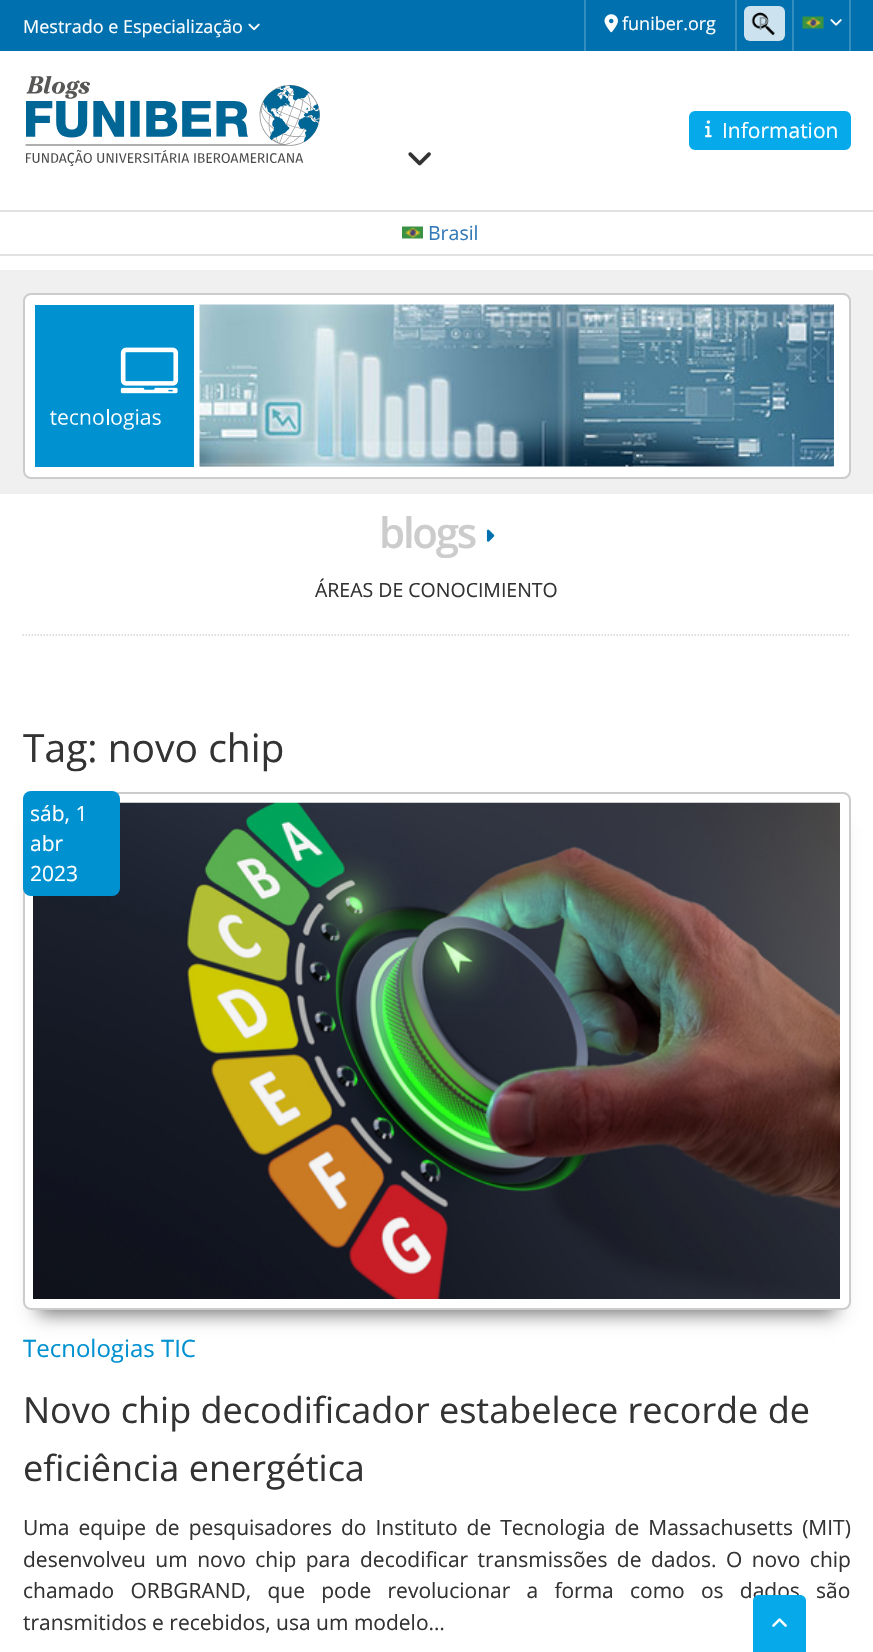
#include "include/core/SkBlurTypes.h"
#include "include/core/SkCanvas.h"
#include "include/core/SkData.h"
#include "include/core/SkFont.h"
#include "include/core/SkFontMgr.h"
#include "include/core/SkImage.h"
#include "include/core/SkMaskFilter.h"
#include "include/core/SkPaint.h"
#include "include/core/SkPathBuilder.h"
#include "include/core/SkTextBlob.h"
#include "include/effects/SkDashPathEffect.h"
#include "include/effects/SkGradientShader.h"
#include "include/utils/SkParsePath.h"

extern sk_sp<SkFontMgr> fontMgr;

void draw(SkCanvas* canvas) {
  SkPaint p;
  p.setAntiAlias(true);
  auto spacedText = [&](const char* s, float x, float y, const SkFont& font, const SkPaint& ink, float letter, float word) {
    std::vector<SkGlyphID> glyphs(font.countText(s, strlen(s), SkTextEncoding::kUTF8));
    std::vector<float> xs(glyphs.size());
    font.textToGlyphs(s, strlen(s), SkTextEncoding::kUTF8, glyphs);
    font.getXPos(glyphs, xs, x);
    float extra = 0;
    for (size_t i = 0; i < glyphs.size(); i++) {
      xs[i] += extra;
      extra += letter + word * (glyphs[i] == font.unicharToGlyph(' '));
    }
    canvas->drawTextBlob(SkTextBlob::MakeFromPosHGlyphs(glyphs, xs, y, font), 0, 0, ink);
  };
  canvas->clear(SK_ColorWHITE);
  p.setColor(SkColorSetRGB(0, 113, 174));
  canvas->drawRect(SkRect::MakeLTRB(0, 0, 873, 51), p);
  canvas->drawImageRect(SkImages::DeferredFromEncodedData(SkData::MakeFromFileName("images/1.png")), SkRect::MakeLTRB(248, 23, 260, 31), SkSamplingOptions());
  p.setColor(SkColorSetRGB(51, 141, 190));
  canvas->drawRect(SkRect::MakeLTRB(735, 0, 737, 51), p);
  canvas->drawRect(SkRect::MakeLTRB(584, 0, 586, 51), p);
  canvas->drawImageRect(SkImages::DeferredFromEncodedData(SkData::MakeFromFileName("images/2.png")), SkRect::MakeLTRB(604, 14, 618, 33), SkSamplingOptions());
  p.setColor(SkColorSetRGB(204, 226, 238));
  canvas->drawRoundRect(SkRect::MakeLTRB(744, 6, 785, 41), 6, 6, p);
  canvas->drawImageRect(SkImages::DeferredFromEncodedData(SkData::MakeFromFileName("images/3.png")), SkRect::MakeLTRB(751, 12, 775, 36), SkSamplingOptions());
  p.setColor(SkColorSetRGB(51, 141, 190));
  canvas->drawRect(SkRect::MakeLTRB(849, 0, 851, 51), p);
  canvas->drawRect(SkRect::MakeLTRB(792, 0, 794, 51), p);
  canvas->drawImageRect(SkImages::DeferredFromEncodedData(SkData::MakeFromFileName("images/4.png")), SkRect::MakeLTRB(802, 16, 824, 29), SkSamplingOptions());
  canvas->drawImageRect(SkImages::DeferredFromEncodedData(SkData::MakeFromFileName("images/5.png")), SkRect::MakeLTRB(830, 19, 842, 26), SkSamplingOptions());
  canvas->drawImageRect(SkImages::DeferredFromEncodedData(SkData::MakeFromFileName("images/6.png")), SkRect::MakeLTRB(25, 76, 320, 167), SkSamplingOptions());
  p.setColor(SkColorSetRGB(6, 170, 235));
  canvas->drawRoundRect(SkRect::MakeLTRB(690, 112, 850, 149), 5, 5, p);
  p.setStyle(SkPaint::kStroke_Style);
  p.setStrokeWidth(2);
  canvas->drawRoundRect(SkRect::MakeLTRB(690, 112, 850, 149), 5, 5, p);
  canvas->drawImageRect(SkImages::DeferredFromEncodedData(SkData::MakeFromFileName("images/7.png")), SkRect::MakeLTRB(705, 120, 712, 138), SkSamplingOptions());
  canvas->drawImageRect(SkImages::DeferredFromEncodedData(SkData::MakeFromFileName("images/8.png")), SkRect::MakeLTRB(408, 152, 431, 166), SkSamplingOptions());
  p.setStyle(SkPaint::kFill_Style);
  p.setColor(SkColorSetRGB(226, 226, 227));
  canvas->drawRect(SkRect::MakeLTRB(0, 210, 873, 212), p);
  canvas->drawRect(SkRect::MakeLTRB(0, 254, 873, 256), p);
  canvas->drawImageRect(SkImages::DeferredFromEncodedData(SkData::MakeFromFileName("images/9.png")), SkRect::MakeLTRB(402, 226, 423, 239), SkSamplingOptions());
  p.setColor(SkColorSetRGB(240, 240, 241));
  canvas->drawRect(SkRect::MakeLTRB(0, 270, 873, 494), p);
  p.setColor(SK_ColorWHITE);
  canvas->drawRoundRect(SkRect::MakeLTRB(24, 294, 850, 478), 7, 7, p);
  p.setStyle(SkPaint::kStroke_Style);
  p.setColor(SkColorSetRGB(204, 204, 204));
  canvas->drawRoundRect(SkRect::MakeLTRB(24, 294, 850, 478), 7, 7, p);
  p.setStyle(SkPaint::kFill_Style);
  p.setColor(SkColorSetRGB(0, 145, 208));
  canvas->drawRect(SkRect::MakeLTRB(35, 305, 194, 467), p);
  canvas->drawImageRect(SkImages::DeferredFromEncodedData(SkData::MakeFromFileName("images/10.png")), SkRect::MakeLTRB(49, 347, 179, 430), SkSamplingOptions());
  canvas->drawImageRect(SkImages::DeferredFromEncodedData(SkData::MakeFromFileName("images/11.png")), SkRect::MakeLTRB(199, 304, 834, 467), SkSamplingOptions());
  p.setStyle(SkPaint::kStroke_Style);
  p.setStrokeWidth(1.5f);
  p.setColor(SkColorSetRGB(211, 211, 213));
  p.setPathEffect(SkDashPathEffect::Make({{1.5f, 1.5f}}, 0));
  canvas->drawPath(SkPathBuilder().moveTo(22.5f, 635).lineTo(850.5f, 635).detach(), p);
  p.setPathEffect(nullptr);
  canvas->drawImageRect(SkImages::DeferredFromEncodedData(SkData::MakeFromFileName("images/12.png")), SkRect::MakeLTRB(486, 529, 495, 542), SkSamplingOptions());
  canvas->save();
  canvas->clipPath(SkPathBuilder(SkPathFillType::kEvenOdd).moveTo(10, 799).lineTo(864, 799).lineTo(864, 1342).lineTo(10, 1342).close().moveTo(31, 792).lineTo(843, 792).cubicTo(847.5f, 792, 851, 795.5f, 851, 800).lineTo(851, 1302).cubicTo(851, 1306.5f, 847.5f, 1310, 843, 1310).lineTo(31, 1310).cubicTo(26.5f, 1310, 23, 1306.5f, 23, 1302).lineTo(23, 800).cubicTo(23, 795.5f, 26.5f, 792, 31, 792).close().detach(), true);
  p.setStyle(SkPaint::kFill_Style);
  p.setColor(SkColorSetARGB(140, 0, 0, 0));
  p.setMaskFilter(SkMaskFilter::MakeBlur(kNormal_SkBlurStyle, 9));
  canvas->drawRect(SkRect::MakeLTRB(38, 827, 836, 1314), p);
  p.setMaskFilter(nullptr);
  canvas->restore();
  p.setStyle(SkPaint::kStroke_Style);
  p.setStrokeWidth(2);
  p.setColor(SkColorSetRGB(204, 204, 204));
  canvas->drawRoundRect(SkRect::MakeLTRB(24, 793, 850, 1309), 7, 7, p);
  canvas->drawImageRect(SkImages::DeferredFromEncodedData(SkData::MakeFromFileName("images/13.png")), SkRect::MakeLTRB(33, 802, 840, 1299), SkSamplingOptions());
  p.setStyle(SkPaint::kFill_Style);
  p.setColor(SkColorSetRGB(0, 145, 208));
  canvas->drawRoundRect(SkRect::MakeLTRB(23, 791, 120, 896), 8, 8, p);
  SkFont font1(fontMgr->matchFamilyStyle("Open Sans", SkFontStyle::Normal()), 18);
  font1.setSubpixel(true);
  p.setColor(SK_ColorWHITE);
  canvas->drawString("Mestrado e Especialização", 23, 33, font1, p);
  canvas->drawString("funiber.org", 622, 30, font1, p);
  p.setColor(SkColorSetRGB(135, 149, 157));
  canvas->drawString("P", 758, 30, font1, p);
  SkFont font2(fontMgr->matchFamilyStyle("Open Sans", SkFontStyle::Normal()), 21);
  font2.setSubpixel(true);
  p.setColor(SK_ColorWHITE);
  canvas->drawString("Information", 722, 138, font2, p);
  SkFont font3(fontMgr->matchFamilyStyle("Open Sans", SkFontStyle::Normal()), 19.5f);
  font3.setSubpixel(true);
  p.setColor(SkColorSetRGB(51, 122, 183));
  canvas->drawString("Brasil", 428, 240, font3, p);
  SkFont font4(fontMgr->matchFamilyStyle("Open Sans", SkFontStyle(600, SkFontStyle::kNormal_Width, SkFontStyle::kUpright_Slant)), 42);
  font4.setSubpixel(true);
  p.setColor(SkColorSetRGB(204, 204, 204));
  spacedText("blogs", 379, 548, font4, p, -2.25f, 0);
  p.setColor(SkColorSetRGB(51, 51, 51));
  canvas->drawString("ÁREAS DE CONOCIMIENTO", 315, 597, font3, p);
  SkFont font5(fontMgr->matchFamilyStyle("Open Sans", SkFontStyle::Normal()), 39);
  font5.setSubpixel(true);
  canvas->drawString("Tag: novo chip", 23, 762, font5, p);
  p.setColor(SK_ColorWHITE);
  canvas->drawString("sáb, 1", 30, 821, font2, p);
  canvas->drawString("abr", 30, 851, font2, p);
  canvas->drawString("2023", 30, 881, font2, p);
  SkFont font6(fontMgr->matchFamilyStyle("Open Sans", SkFontStyle::Normal()), 24);
  font6.setSubpixel(true);
  p.setColor(SkColorSetRGB(0, 145, 208));
  canvas->drawString("Tecnologias TIC", 23, 1357, font6, p);
  SkFont font7(fontMgr->matchFamilyStyle("Open Sans", SkFontStyle::Normal()), 36);
  font7.setSubpixel(true);
  p.setColor(SkColorSetRGB(51, 51, 51));
  canvas->drawString("Novo chip decodificador estabelece recorde de", 23, 1423, font7, p);
  canvas->drawString("eficiência energética", 23, 1481, font7, p);
  spacedText("Uma equipe de pesquisadores do Instituto de Tecnologia de Massachusetts (MIT)", 23, 1535, font2, p, 0, 3.6f);
  spacedText("desenvolveu um novo chip para decodificar transmissões de dados. O novo chip", 23, 1567, font2, p, 0, 4);
  spacedText("chamado ORBGRAND, que pode revolucionar a forma como os dados são", 23, 1598, font2, p, 0, 10.75f);
  canvas->drawString("transmitidos e recebidos, usa um modelo…", 23, 1630, font2, p);
  p.setColor(SkColorSetRGB(6, 170, 235));
  canvas->drawPath(SkPathBuilder().moveTo(759, 1595).lineTo(800, 1595).cubicTo(803.5f, 1595, 806, 1597.5f, 806, 1601).lineTo(806, 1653).lineTo(753, 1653).lineTo(753, 1601).cubicTo(753, 1597.5f, 755.5f, 1595, 759, 1595).close().detach(), p);
  canvas->drawImageRect(SkImages::DeferredFromEncodedData(SkData::MakeFromFileName("images/14.png")), SkRect::MakeLTRB(772, 1618, 787, 1627), SkSamplingOptions());
}
